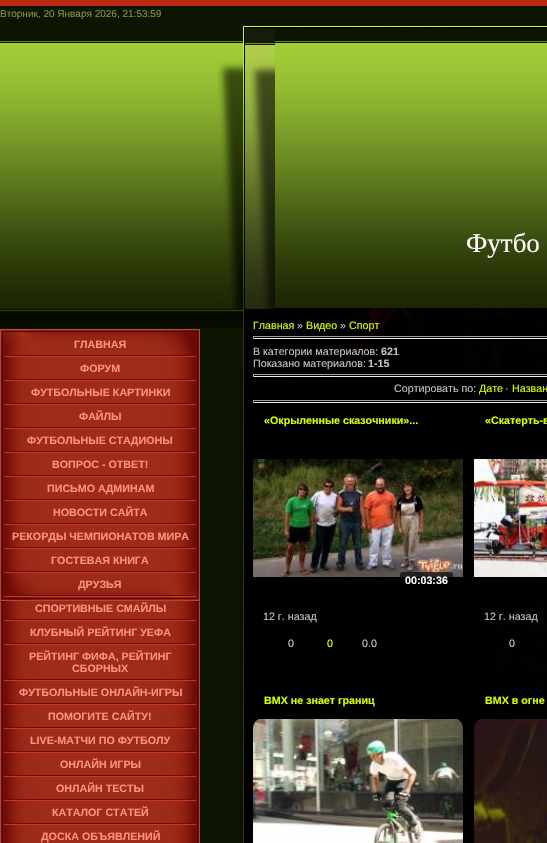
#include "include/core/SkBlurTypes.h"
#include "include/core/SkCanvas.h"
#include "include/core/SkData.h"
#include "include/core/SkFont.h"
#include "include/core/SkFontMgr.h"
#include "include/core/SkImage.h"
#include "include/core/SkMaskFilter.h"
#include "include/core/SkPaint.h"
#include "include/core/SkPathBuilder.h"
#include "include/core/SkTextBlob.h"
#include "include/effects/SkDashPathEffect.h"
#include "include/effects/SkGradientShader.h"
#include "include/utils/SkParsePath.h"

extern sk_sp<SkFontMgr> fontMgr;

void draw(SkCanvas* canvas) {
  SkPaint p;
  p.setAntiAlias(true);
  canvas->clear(SkColorSetRGB(13, 20, 2));
  canvas->drawImageRect(SkImages::DeferredFromEncodedData(SkData::MakeFromFileName("images/1.png")), SkRect::MakeLTRB(0, 0, 547, 328), SkSamplingOptions());
  canvas->drawImageRect(SkImages::DeferredFromEncodedData(SkData::MakeFromFileName("images/2.png")), SkRect::MakeLTRB(217, 26, 547, 309), SkSamplingOptions());
  canvas->drawImageRect(SkImages::DeferredFromEncodedData(SkData::MakeFromFileName("images/3.png")), SkRect::MakeLTRB(245, 28, 275, 309), SkSamplingOptions());
  canvas->drawImageRect(SkImages::DeferredFromEncodedData(SkData::MakeFromFileName("images/4.png")), SkRect::MakeLTRB(0, 358, 200, 843), SkSamplingOptions());
  canvas->drawImageRect(SkImages::DeferredFromEncodedData(SkData::MakeFromFileName("images/5.png")), SkRect::MakeLTRB(0, 329, 200, 358), SkSamplingOptions());
  canvas->drawImageRect(SkImages::DeferredFromEncodedData(SkData::MakeFromFileName("images/6.png")), SkRect::MakeLTRB(4, 355, 196, 357), SkSamplingOptions());
  canvas->drawImageRect(SkImages::DeferredFromEncodedData(SkData::MakeFromFileName("images/6.png")), SkRect::MakeLTRB(4, 379, 196, 381), SkSamplingOptions());
  canvas->drawImageRect(SkImages::DeferredFromEncodedData(SkData::MakeFromFileName("images/6.png")), SkRect::MakeLTRB(4, 403, 196, 405), SkSamplingOptions());
  canvas->drawImageRect(SkImages::DeferredFromEncodedData(SkData::MakeFromFileName("images/6.png")), SkRect::MakeLTRB(4, 427, 196, 429), SkSamplingOptions());
  canvas->drawImageRect(SkImages::DeferredFromEncodedData(SkData::MakeFromFileName("images/6.png")), SkRect::MakeLTRB(4, 451, 196, 453), SkSamplingOptions());
  canvas->drawImageRect(SkImages::DeferredFromEncodedData(SkData::MakeFromFileName("images/6.png")), SkRect::MakeLTRB(4, 475, 196, 477), SkSamplingOptions());
  canvas->drawImageRect(SkImages::DeferredFromEncodedData(SkData::MakeFromFileName("images/6.png")), SkRect::MakeLTRB(4, 499, 196, 501), SkSamplingOptions());
  canvas->drawImageRect(SkImages::DeferredFromEncodedData(SkData::MakeFromFileName("images/6.png")), SkRect::MakeLTRB(4, 523, 196, 525), SkSamplingOptions());
  canvas->drawImageRect(SkImages::DeferredFromEncodedData(SkData::MakeFromFileName("images/6.png")), SkRect::MakeLTRB(4, 547, 196, 549), SkSamplingOptions());
  canvas->drawImageRect(SkImages::DeferredFromEncodedData(SkData::MakeFromFileName("images/6.png")), SkRect::MakeLTRB(4, 571, 196, 573), SkSamplingOptions());
  canvas->drawImageRect(SkImages::DeferredFromEncodedData(SkData::MakeFromFileName("images/6.png")), SkRect::MakeLTRB(4, 595, 196, 597), SkSamplingOptions());
  canvas->drawImageRect(SkImages::DeferredFromEncodedData(SkData::MakeFromFileName("images/6.png")), SkRect::MakeLTRB(4, 619, 196, 621), SkSamplingOptions());
  canvas->drawImageRect(SkImages::DeferredFromEncodedData(SkData::MakeFromFileName("images/6.png")), SkRect::MakeLTRB(4, 643, 196, 645), SkSamplingOptions());
  canvas->drawImageRect(SkImages::DeferredFromEncodedData(SkData::MakeFromFileName("images/6.png")), SkRect::MakeLTRB(4, 679, 196, 681), SkSamplingOptions());
  canvas->drawImageRect(SkImages::DeferredFromEncodedData(SkData::MakeFromFileName("images/6.png")), SkRect::MakeLTRB(4, 703, 196, 705), SkSamplingOptions());
  canvas->drawImageRect(SkImages::DeferredFromEncodedData(SkData::MakeFromFileName("images/6.png")), SkRect::MakeLTRB(4, 727, 196, 729), SkSamplingOptions());
  canvas->drawImageRect(SkImages::DeferredFromEncodedData(SkData::MakeFromFileName("images/6.png")), SkRect::MakeLTRB(4, 751, 196, 753), SkSamplingOptions());
  canvas->drawImageRect(SkImages::DeferredFromEncodedData(SkData::MakeFromFileName("images/6.png")), SkRect::MakeLTRB(4, 775, 196, 777), SkSamplingOptions());
  canvas->drawImageRect(SkImages::DeferredFromEncodedData(SkData::MakeFromFileName("images/6.png")), SkRect::MakeLTRB(4, 799, 196, 801), SkSamplingOptions());
  canvas->drawImageRect(SkImages::DeferredFromEncodedData(SkData::MakeFromFileName("images/6.png")), SkRect::MakeLTRB(4, 823, 196, 825), SkSamplingOptions());
  canvas->drawImageRect(SkImages::DeferredFromEncodedData(SkData::MakeFromFileName("images/7.png")), SkRect::MakeLTRB(243, 309, 547, 843), SkSamplingOptions());
  canvas->drawImageRect(SkImages::DeferredFromEncodedData(SkData::MakeFromFileName("images/8.png")), SkRect::MakeLTRB(243, 309, 508, 367), SkSamplingOptions());
  p.setColor(SkColorSetRGB(159, 159, 159));
  canvas->drawRect(SkRect::MakeLTRB(253, 336, 547, 337), p);
  p.setColor(SkColorSetRGB(238, 238, 238));
  canvas->drawRect(SkRect::MakeLTRB(253, 338, 547, 339), p);
  p.setColor(SkColorSetRGB(159, 159, 159));
  canvas->drawRect(SkRect::MakeLTRB(253, 336, 254, 339), p);
  canvas->drawRect(SkRect::MakeLTRB(253, 374, 547, 375), p);
  p.setColor(SkColorSetRGB(238, 238, 238));
  canvas->drawRect(SkRect::MakeLTRB(253, 376, 547, 377), p);
  p.setColor(SkColorSetRGB(159, 159, 159));
  canvas->drawRect(SkRect::MakeLTRB(253, 374, 254, 377), p);
  canvas->drawRect(SkRect::MakeLTRB(253, 400, 547, 401), p);
  p.setColor(SkColorSetRGB(238, 238, 238));
  canvas->drawRect(SkRect::MakeLTRB(253, 402, 547, 403), p);
  p.setColor(SkColorSetRGB(159, 159, 159));
  canvas->drawRect(SkRect::MakeLTRB(253, 400, 254, 403), p);
  p.setColor(SK_ColorBLACK);
  canvas->drawRoundRect(SkRect::MakeLTRB(253, 438, 463, 598), 10, 10, p);
  canvas->drawImageRect(SkImages::DeferredFromEncodedData(SkData::MakeFromFileName("images/9.png")), SkRect::MakeLTRB(253, 459, 463, 577), SkSamplingOptions());
  p.setColor(SkColorSetARGB(161, 0, 0, 0));
  canvas->drawRoundRect(SkRect::MakeLTRB(400, 572, 453, 588), 3, 3, p);
  p.setColor(SK_ColorBLACK);
  canvas->drawRoundRect(SkRect::MakeLTRB(474, 438, 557, 598), 10, 10, p);
  canvas->drawImageRect(SkImages::DeferredFromEncodedData(SkData::MakeFromFileName("images/10.png")), SkRect::MakeLTRB(474, 459, 547, 577), SkSamplingOptions());
  canvas->drawRoundRect(SkRect::MakeLTRB(253, 718, 463, 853), 10, 10, p);
  canvas->drawImageRect(SkImages::DeferredFromEncodedData(SkData::MakeFromFileName("images/11.png")), SkRect::MakeLTRB(253, 719, 463, 843), SkSamplingOptions());
  canvas->drawRoundRect(SkRect::MakeLTRB(474, 718, 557, 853), 10, 10, p);
  canvas->drawImageRect(SkImages::DeferredFromEncodedData(SkData::MakeFromFileName("images/12.png")), SkRect::MakeLTRB(474, 719, 547, 843), SkSamplingOptions());
  SkFont font1(fontMgr->matchFamilyStyle("Liberation Sans", SkFontStyle::Normal()), 10);
  font1.setSubpixel(true);
  p.setColor(SkColorSetRGB(129, 152, 53));
  canvas->drawString("Вторник, 20 Января 2026, 21:53:59", 0, 17, font1, p);
  SkFont font2(fontMgr->matchFamilyStyle("Liberation Serif", SkFontStyle::Normal()), 27);
  font2.setSubpixel(true);
  p.setColor(SK_ColorWHITE);
  canvas->drawString("Футбо", 466, 252, font2, p);
  SkFont font3(fontMgr->matchFamilyStyle("Liberation Sans", SkFontStyle::Bold()), 10.7f);
  font3.setSubpixel(true);
  p.setColor(SkColorSetRGB(255, 146, 128));
  canvas->drawString("ГЛАВНАЯ", 74, 348, font3, p);
  canvas->drawString("ФОРУМ", 80, 372, font3, p);
  canvas->drawString("ФУТБОЛЬНЫЕ КАРТИНКИ", 31, 396, font3, p);
  canvas->drawString("ФАЙЛЫ", 79, 420, font3, p);
  canvas->drawString("ФУТБОЛЬНЫЕ СТАДИОНЫ", 27, 444, font3, p);
  canvas->drawString("ВОПРОС - ОТВЕТ!", 52, 468, font3, p);
  canvas->drawString("ПИСЬМО АДМИНАМ", 47, 492, font3, p);
  canvas->drawString("НОВОСТИ САЙТА", 53, 516, font3, p);
  canvas->drawString("РЕКОРДЫ ЧЕМПИОНАТОВ МИРА", 12, 540, font3, p);
  canvas->drawString("ГОСТЕВАЯ КНИГА", 51, 564, font3, p);
  canvas->drawString("ДРУЗЬЯ", 78, 588, font3, p);
  canvas->drawString("СПОРТИВНЫЕ СМАЙЛЫ", 35, 612, font3, p);
  canvas->drawString("КЛУБНЫЙ РЕЙТИНГ УЕФА", 30, 636, font3, p);
  canvas->drawString("РЕЙТИНГ ФИФА, РЕЙТИНГ", 29, 660, font3, p);
  canvas->drawString("СБОРНЫХ", 72, 672, font3, p);
  canvas->drawString("ФУТБОЛЬНЫЕ ОНЛАЙН-ИГРЫ", 19, 696, font3, p);
  canvas->drawString("ПОМОГИТЕ САЙТУ!", 48, 720, font3, p);
  canvas->drawString("LIVE-МАТЧИ ПО ФУТБОЛУ", 30, 744, font3, p);
  canvas->drawString("ОНЛАЙН ИГРЫ", 60, 768, font3, p);
  canvas->drawString("ОНЛАЙН ТЕСТЫ", 56, 792, font3, p);
  canvas->drawString("КАТАЛОГ СТАТЕЙ", 52, 816, font3, p);
  canvas->drawString("ДОСКА ОБЪЯВЛЕНИЙ", 41, 840, font3, p);
  SkFont font4(fontMgr->matchFamilyStyle("Liberation Sans", SkFontStyle::Normal()), 10.7f);
  font4.setSubpixel(true);
  p.setColor(SkColorSetRGB(204, 255, 0));
  canvas->drawString("Главная", 253, 329, font4, p);
  p.setColor(SkColorSetRGB(194, 194, 194));
  canvas->drawString("»", 297, 329, font4, p);
  p.setColor(SkColorSetRGB(204, 255, 0));
  canvas->drawString("Видео", 306, 329, font4, p);
  p.setColor(SkColorSetRGB(194, 194, 194));
  canvas->drawString("»", 340, 329, font4, p);
  p.setColor(SkColorSetRGB(204, 255, 0));
  canvas->drawString("Спорт", 349, 329, font4, p);
  p.setColor(SkColorSetRGB(194, 194, 194));
  canvas->drawString("В категории материалов:", 253, 355, font4, p);
  canvas->drawString("621", 381, 355, font3, p);
  canvas->drawString("Показано материалов:", 253, 367, font4, p);
  canvas->drawString("1-15", 368, 367, font3, p);
  canvas->drawString("Сортировать по:", 394, 392, font4, p);
  p.setColor(SkColorSetRGB(204, 255, 0));
  canvas->drawString("Дате", 479, 392, font4, p);
  p.setColor(SkColorSetRGB(194, 194, 194));
  canvas->drawString("·", 505, 392, font4, p);
  p.setColor(SkColorSetRGB(204, 255, 0));
  canvas->drawString("Назван", 512, 392, font4, p);
  canvas->drawString("«Окрыленные сказочники»...", 264, 424, font3, p);
  p.setColor(SK_ColorWHITE);
  canvas->drawString("00:03:36", 405, 584, font3, p);
  p.setColor(SkColorSetRGB(194, 194, 194));
  canvas->drawString("12 г. назад", 263, 620, font4, p);
  canvas->drawString("0", 288, 647, font4, p);
  p.setColor(SkColorSetRGB(204, 255, 0));
  canvas->drawString("0", 327, 647, font4, p);
  p.setColor(SkColorSetRGB(194, 194, 194));
  canvas->drawString("0.0", 362, 647, font4, p);
  p.setColor(SkColorSetRGB(204, 255, 0));
  canvas->drawString("«Скатерть-в", 485, 424, font3, p);
  p.setColor(SkColorSetRGB(194, 194, 194));
  canvas->drawString("12 г. назад", 484, 620, font4, p);
  canvas->drawString("0", 509, 647, font4, p);
  p.setColor(SkColorSetRGB(204, 255, 0));
  canvas->drawString("BMX не знает границ", 264, 704, font3, p);
  canvas->drawString("BMX в огне", 485, 704, font3, p);
}
